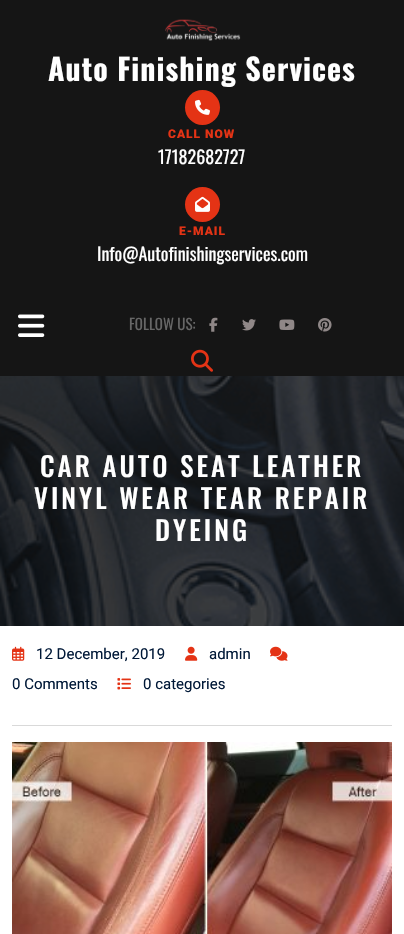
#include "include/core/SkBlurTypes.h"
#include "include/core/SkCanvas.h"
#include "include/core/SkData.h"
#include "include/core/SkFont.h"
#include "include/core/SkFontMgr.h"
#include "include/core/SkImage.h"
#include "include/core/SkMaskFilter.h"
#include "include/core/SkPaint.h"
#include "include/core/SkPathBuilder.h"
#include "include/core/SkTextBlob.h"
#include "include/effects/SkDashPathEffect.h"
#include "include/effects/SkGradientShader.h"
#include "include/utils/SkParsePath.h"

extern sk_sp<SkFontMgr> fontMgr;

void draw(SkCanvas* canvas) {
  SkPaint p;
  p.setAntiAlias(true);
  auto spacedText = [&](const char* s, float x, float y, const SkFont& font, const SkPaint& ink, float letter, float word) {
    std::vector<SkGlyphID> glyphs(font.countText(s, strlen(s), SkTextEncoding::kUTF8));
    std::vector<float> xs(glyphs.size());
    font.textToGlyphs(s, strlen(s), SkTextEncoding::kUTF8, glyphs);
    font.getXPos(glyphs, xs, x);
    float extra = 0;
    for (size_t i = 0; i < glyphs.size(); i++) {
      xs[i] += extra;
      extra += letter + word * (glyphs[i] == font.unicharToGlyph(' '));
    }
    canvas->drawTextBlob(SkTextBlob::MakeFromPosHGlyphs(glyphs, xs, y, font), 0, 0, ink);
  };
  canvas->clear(SK_ColorWHITE);
  p.setColor(SkColorSetRGB(21, 21, 21));
  canvas->drawRect(SkRect::MakeLTRB(0, 0, 404, 376), p);
  canvas->drawImageRect(SkImages::DeferredFromEncodedData(SkData::MakeFromFileName("images/1.png")), SkRect::MakeLTRB(165, 19, 241, 41), SkSamplingOptions());
  p.setColor(SkColorSetRGB(228, 51, 21));
  canvas->drawCircle(202.5f, 107.5f, 17.5f, p);
  canvas->drawImageRect(SkImages::DeferredFromEncodedData(SkData::MakeFromFileName("images/2.png")), SkRect::MakeLTRB(195, 99, 210, 115), SkSamplingOptions());
  canvas->drawCircle(202.5f, 204.5f, 17.5f, p);
  canvas->drawImageRect(SkImages::DeferredFromEncodedData(SkData::MakeFromFileName("images/3.png")), SkRect::MakeLTRB(195, 196, 210, 212), SkSamplingOptions());
  canvas->drawImageRect(SkImages::DeferredFromEncodedData(SkData::MakeFromFileName("images/4.png")), SkRect::MakeLTRB(18, 314, 45, 337), SkSamplingOptions());
  canvas->drawImageRect(SkImages::DeferredFromEncodedData(SkData::MakeFromFileName("images/5.png")), SkRect::MakeLTRB(209, 317, 218, 332), SkSamplingOptions());
  canvas->drawImageRect(SkImages::DeferredFromEncodedData(SkData::MakeFromFileName("images/6.png")), SkRect::MakeLTRB(242, 319, 256, 331), SkSamplingOptions());
  canvas->drawImageRect(SkImages::DeferredFromEncodedData(SkData::MakeFromFileName("images/7.png")), SkRect::MakeLTRB(279, 319, 295, 330), SkSamplingOptions());
  canvas->drawImageRect(SkImages::DeferredFromEncodedData(SkData::MakeFromFileName("images/8.png")), SkRect::MakeLTRB(318, 318, 332, 332), SkSamplingOptions());
  canvas->drawImageRect(SkImages::DeferredFromEncodedData(SkData::MakeFromFileName("images/9.png")), SkRect::MakeLTRB(191, 349, 213, 372), SkSamplingOptions());
  p.setColor(SK_ColorBLACK);
  canvas->drawRect(SkRect::MakeLTRB(0, 376, 404, 626), p);
  canvas->drawImageRect(SkImages::DeferredFromEncodedData(SkData::MakeFromFileName("images/10.png")), SkRect::MakeLTRB(0, 376, 404, 626), SkSamplingOptions());
  canvas->drawImageRect(SkImages::DeferredFromEncodedData(SkData::MakeFromFileName("images/11.png")), SkRect::MakeLTRB(12, 646, 25, 661), SkSamplingOptions());
  canvas->drawImageRect(SkImages::DeferredFromEncodedData(SkData::MakeFromFileName("images/12.png")), SkRect::MakeLTRB(185, 646, 198, 661), SkSamplingOptions());
  canvas->drawImageRect(SkImages::DeferredFromEncodedData(SkData::MakeFromFileName("images/13.png")), SkRect::MakeLTRB(270, 646, 288, 661), SkSamplingOptions());
  canvas->drawImageRect(SkImages::DeferredFromEncodedData(SkData::MakeFromFileName("images/14.png")), SkRect::MakeLTRB(117, 678, 131, 690), SkSamplingOptions());
  p.setColor(SkColorSetRGB(217, 217, 217));
  canvas->drawRect(SkRect::MakeLTRB(12, 725, 392, 726), p);
  canvas->drawImageRect(SkImages::DeferredFromEncodedData(SkData::MakeFromFileName("images/15.png")), SkRect::MakeLTRB(12, 742, 392, 934), SkSamplingOptions());
  SkFont font1(fontMgr->matchFamilyStyle("Oswald", SkFontStyle::Bold()), 30);
  font1.setSubpixel(true);
  p.setColor(SK_ColorWHITE);
  spacedText("Auto Finishing Services", 48, 81, font1, p, 1, 0);
  SkFont font2(fontMgr->matchFamilyStyle("Roboto", SkFontStyle(900, SkFontStyle::kNormal_Width, SkFontStyle::kUpright_Slant)), 12);
  font2.setSubpixel(true);
  p.setColor(SkColorSetRGB(228, 51, 21));
  spacedText("CALL NOW", 168, 138, font2, p, 1, 0);
  SkFont font3(fontMgr->matchFamilyStyle("Oswald", SkFontStyle::Normal()), 18);
  font3.setSubpixel(true);
  p.setColor(SK_ColorWHITE);
  canvas->drawString("17182682727", 158, 164, font3, p);
  p.setColor(SkColorSetRGB(228, 51, 21));
  spacedText("E-MAIL", 179, 235, font2, p, 1, 0);
  p.setColor(SK_ColorWHITE);
  canvas->drawString("Info@Autofinishingservices.com", 97, 261, font3, p);
  SkFont font4(fontMgr->matchFamilyStyle("Oswald", SkFontStyle::Normal()), 15);
  font4.setSubpixel(true);
  p.setColor(SkColorSetRGB(103, 103, 103));
  canvas->drawString("FOLLOW US:", 129, 330, font4, p);
  SkFont font5(fontMgr->matchFamilyStyle("Oswald", SkFontStyle(500, SkFontStyle::kNormal_Width, SkFontStyle::kUpright_Slant)), 27);
  font5.setSubpixel(true);
  p.setColor(SK_ColorWHITE);
  spacedText("CAR AUTO SEAT LEATHER", 40, 477, font5, p, 3, 0);
  spacedText("VINYL WEAR TEAR REPAIR", 34, 509, font5, p, 3, 0);
  spacedText("DYEING", 155, 541, font5, p, 3, 0);
  SkFont font6(fontMgr->matchFamilyStyle("Roboto", SkFontStyle::Normal()), 15);
  font6.setSubpixel(true);
  p.setColor(SkColorSetRGB(0, 24, 55));
  canvas->drawString("12 December, 2019", 36, 659, font6, p);
  canvas->drawString("admin", 209, 659, font6, p);
  canvas->drawString("0 Comments", 12, 689, font6, p);
  canvas->drawString("0 categories", 143, 689, font6, p);
}
